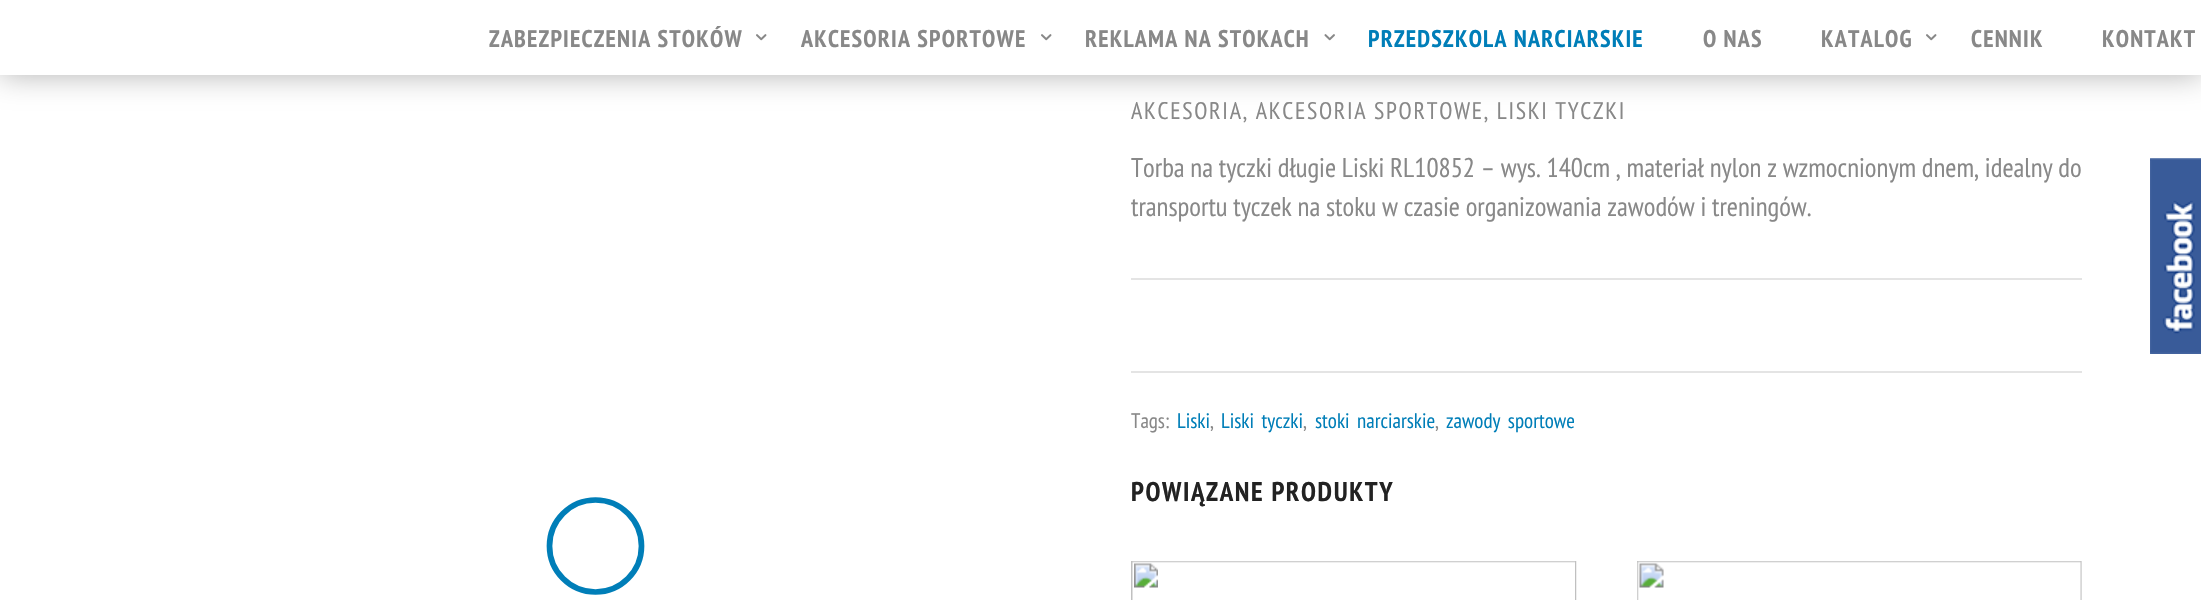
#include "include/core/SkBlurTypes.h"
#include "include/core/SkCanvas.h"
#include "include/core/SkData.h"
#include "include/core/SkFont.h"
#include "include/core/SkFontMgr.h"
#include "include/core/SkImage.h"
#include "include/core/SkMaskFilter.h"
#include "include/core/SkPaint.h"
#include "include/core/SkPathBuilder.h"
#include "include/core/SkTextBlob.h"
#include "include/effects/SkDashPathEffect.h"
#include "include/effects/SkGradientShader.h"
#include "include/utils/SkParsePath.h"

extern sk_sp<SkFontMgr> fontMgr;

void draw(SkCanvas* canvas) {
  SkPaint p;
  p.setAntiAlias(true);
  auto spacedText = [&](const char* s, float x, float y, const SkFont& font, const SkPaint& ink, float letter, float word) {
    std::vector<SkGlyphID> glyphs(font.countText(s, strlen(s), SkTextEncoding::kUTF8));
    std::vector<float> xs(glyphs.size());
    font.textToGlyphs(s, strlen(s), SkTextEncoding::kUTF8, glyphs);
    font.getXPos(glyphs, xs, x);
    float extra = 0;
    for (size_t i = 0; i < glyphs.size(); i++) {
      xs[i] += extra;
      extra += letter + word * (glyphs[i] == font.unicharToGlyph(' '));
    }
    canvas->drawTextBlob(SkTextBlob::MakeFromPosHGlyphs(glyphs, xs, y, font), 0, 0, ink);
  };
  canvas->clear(SK_ColorWHITE);
  p.setColor(SkColorSetARGB(77, 0, 0, 0));
  p.setMaskFilter(SkMaskFilter::MakeBlur(kNormal_SkBlurStyle, 15));
  canvas->drawRect(SkRect::MakeLTRB(0, 0, 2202, 75), p);
  p.setMaskFilter(nullptr);
  p.setColor(SK_ColorWHITE);
  canvas->drawRect(SkRect::MakeLTRB(0, 0, 2201, 75), p);
  canvas->drawImageRect(SkImages::DeferredFromEncodedData(SkData::MakeFromFileName("images/1.png")), SkRect::MakeLTRB(756, 34, 767, 41), SkSamplingOptions());
  canvas->drawImageRect(SkImages::DeferredFromEncodedData(SkData::MakeFromFileName("images/1.png")), SkRect::MakeLTRB(1041, 34, 1052, 41), SkSamplingOptions());
  canvas->drawImageRect(SkImages::DeferredFromEncodedData(SkData::MakeFromFileName("images/2.png")), SkRect::MakeLTRB(1324, 34, 1335, 41), SkSamplingOptions());
  canvas->drawImageRect(SkImages::DeferredFromEncodedData(SkData::MakeFromFileName("images/1.png")), SkRect::MakeLTRB(1926, 34, 1937, 41), SkSamplingOptions());
  p.setColor(SkColorSetRGB(228, 228, 228));
  canvas->drawRect(SkRect::MakeLTRB(1131, 278, 2082, 280), p);
  canvas->drawRect(SkRect::MakeLTRB(1131, 371, 2082, 373), p);
  canvas->drawImageRect(SkImages::DeferredFromEncodedData(SkData::MakeFromFileName("images/3.png")), SkRect::MakeLTRB(1131, 561, 1577, 600), SkSamplingOptions());
  canvas->drawImageRect(SkImages::DeferredFromEncodedData(SkData::MakeFromFileName("images/4.png")), SkRect::MakeLTRB(1637, 561, 2082, 600), SkSamplingOptions());
  p.setStyle(SkPaint::kStroke_Style);
  p.setStrokeWidth(5.7f);
  p.setColor(SkColorSetRGB(0, 126, 184));
  canvas->drawCircle(595.5f, 546, 46, p);
  canvas->drawImageRect(SkImages::DeferredFromEncodedData(SkData::MakeFromFileName("images/5.png")), SkRect::MakeLTRB(2150, 158, 2201, 354), SkSamplingOptions());
  SkFont font1(fontMgr->matchFamilyStyle("PT Sans Narrow", SkFontStyle::Bold()), 24);
  font1.setSubpixel(true);
  p.setStyle(SkPaint::kFill_Style);
  p.setColor(SkColorSetRGB(136, 136, 136));
  spacedText("ZABEZPIECZENIA STOKÓW", 489, 47, font1, p, 1.2f, 0);
  spacedText("AKCESORIA SPORTOWE", 801, 47, font1, p, 1.2f, 0);
  spacedText("REKLAMA NA STOKACH", 1085, 47, font1, p, 1.2f, 0);
  p.setColor(SkColorSetRGB(0, 126, 184));
  spacedText("PRZEDSZKOLA NARCIARSKIE", 1368, 47, font1, p, 1.2f, 0);
  p.setColor(SkColorSetRGB(136, 136, 136));
  spacedText("O NAS", 1703, 47, font1, p, 1.2f, 0);
  spacedText("KATALOG", 1821, 47, font1, p, 1.2f, 0);
  spacedText("CENNIK", 1971, 47, font1, p, 1.2f, 0);
  spacedText("KONTAKT", 2102, 47, font1, p, 1.2f, 0);
  SkFont font2(fontMgr->matchFamilyStyle("PT Sans Narrow", SkFontStyle::Normal()), 24);
  font2.setSubpixel(true);
  spacedText("AKCESORIA, AKCESORIA SPORTOWE, LISKI TYCZKI", 1131, 119, font2, p, 1.7f, 0);
  SkFont font3(fontMgr->matchFamilyStyle("PT Sans Narrow", SkFontStyle::Normal()), 27);
  font3.setSubpixel(true);
  canvas->drawString("Torba na tyczki długie Liski RL10852 – wys. 140cm , materiał nylon z wzmocnionym dnem, idealny do", 1131, 177, font3, p);
  canvas->drawString("transportu tyczek na stoku w czasie organizowania zawodów i treningów.", 1131, 216, font3, p);
  SkFont font4(fontMgr->matchFamilyStyle("PT Sans Narrow", SkFontStyle::Normal()), 21);
  font4.setSubpixel(true);
  canvas->drawString("Tags:", 1131, 428, font4, p);
  p.setColor(SkColorSetRGB(0, 126, 184));
  canvas->drawString("Liski", 1177, 428, font4, p);
  p.setColor(SkColorSetRGB(136, 136, 136));
  canvas->drawString(",", 1210, 428, font4, p);
  p.setColor(SkColorSetRGB(0, 126, 184));
  spacedText("Liski tyczki", 1221, 428, font4, p, 0, 3);
  p.setColor(SkColorSetRGB(136, 136, 136));
  canvas->drawString(",", 1303, 428, font4, p);
  p.setColor(SkColorSetRGB(0, 126, 184));
  spacedText("stoki narciarskie", 1315, 428, font4, p, 0, 3);
  p.setColor(SkColorSetRGB(136, 136, 136));
  canvas->drawString(",", 1435, 428, font4, p);
  p.setColor(SkColorSetRGB(0, 126, 184));
  spacedText("zawody sportowe", 1446, 428, font4, p, 0, 3);
  SkFont font5(fontMgr->matchFamilyStyle("PT Sans Narrow", SkFontStyle::Bold()), 27);
  font5.setSubpixel(true);
  p.setColor(SkColorSetRGB(34, 34, 34));
  spacedText("POWIĄZANE PRODUKTY", 1131, 501, font5, p, 1.6f, 0);
}
